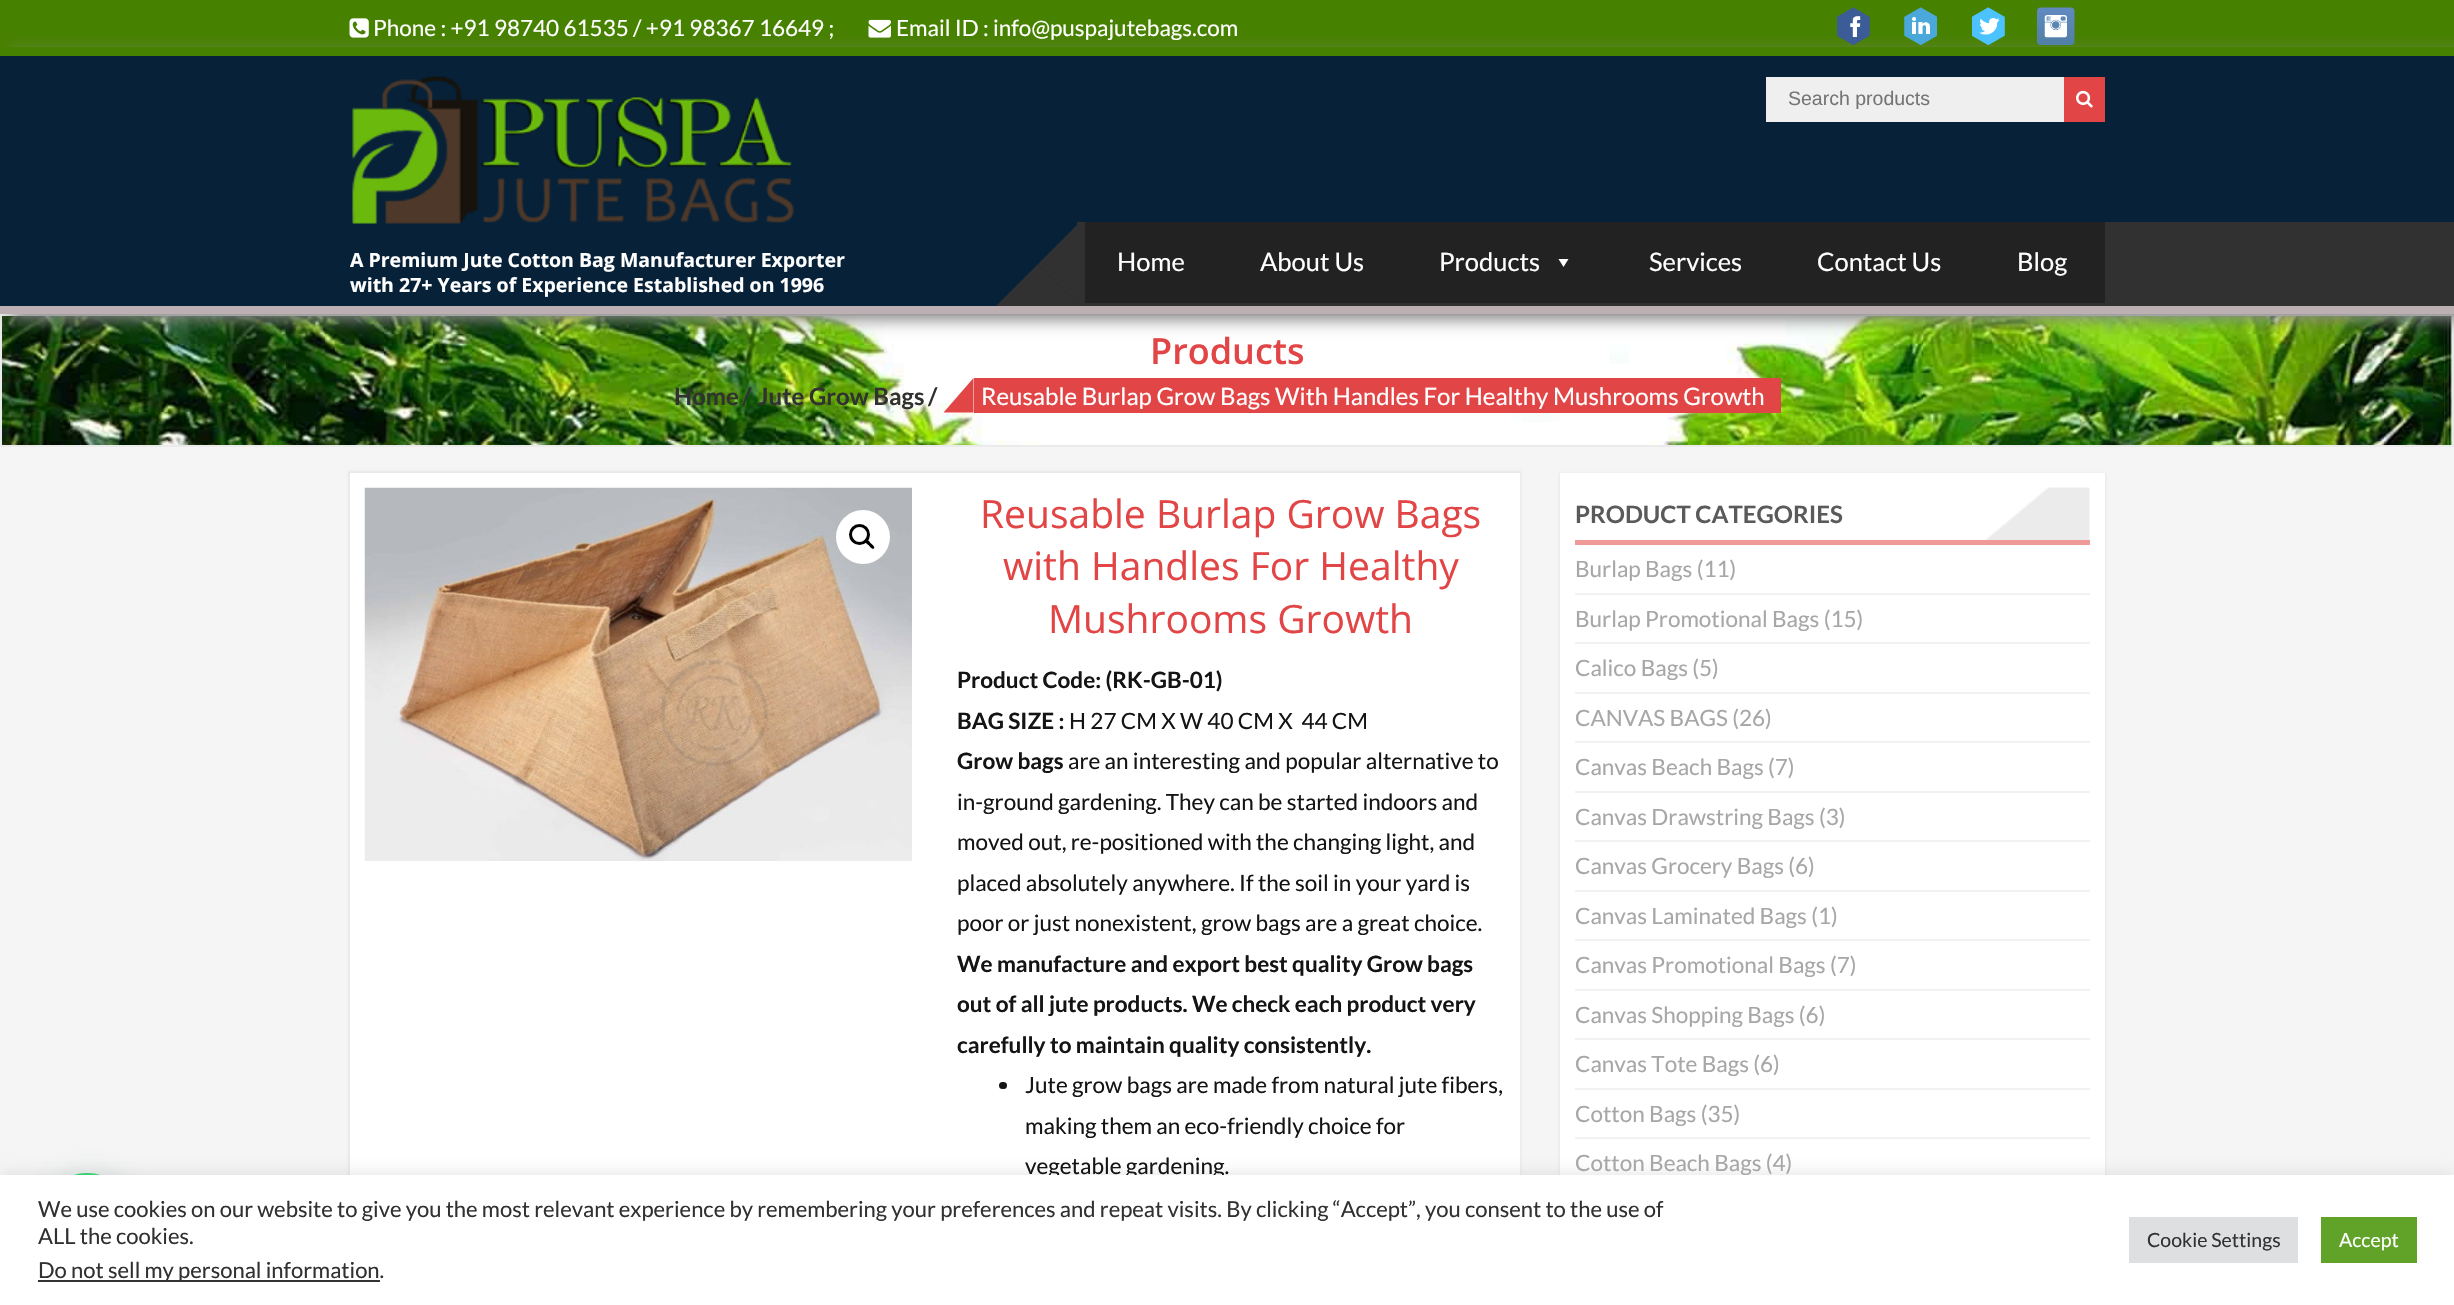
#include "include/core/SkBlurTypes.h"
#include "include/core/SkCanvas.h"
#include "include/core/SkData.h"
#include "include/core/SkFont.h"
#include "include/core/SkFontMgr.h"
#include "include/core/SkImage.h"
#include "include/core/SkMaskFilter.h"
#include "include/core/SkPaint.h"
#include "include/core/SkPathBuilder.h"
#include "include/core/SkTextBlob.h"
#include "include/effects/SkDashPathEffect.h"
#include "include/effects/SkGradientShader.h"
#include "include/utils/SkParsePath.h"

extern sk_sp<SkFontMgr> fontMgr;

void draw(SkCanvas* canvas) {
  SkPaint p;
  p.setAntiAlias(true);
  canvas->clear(SkColorSetRGB(6, 33, 56));
  p.setColor(SkColorSetRGB(71, 129, 0));
  canvas->drawRect(SkRect::MakeLTRB(0, 0, 2454, 56), p);
  canvas->drawImageRect(SkImages::DeferredFromEncodedData(SkData::MakeFromFileName("images/1.png")), SkRect::MakeLTRB(349, 18, 369, 38), SkSamplingOptions());
  canvas->drawImageRect(SkImages::DeferredFromEncodedData(SkData::MakeFromFileName("images/2.png")), SkRect::MakeLTRB(868, 19, 891, 38), SkSamplingOptions());
  p.setColor(SkColorSetRGB(239, 239, 239));
  canvas->drawRect(SkRect::MakeLTRB(1766, 77, 2064, 122), p);
  p.setColor(SkColorSetRGB(226, 69, 69));
  canvas->drawRect(SkRect::MakeLTRB(2064, 77, 2105, 122), p);
  canvas->drawImageRect(SkImages::DeferredFromEncodedData(SkData::MakeFromFileName("images/7.png")), SkRect::MakeLTRB(2076, 90, 2093, 108), SkSamplingOptions());
  p.setColor(SkColorSetRGB(49, 49, 49));
  canvas->drawRect(SkRect::MakeLTRB(2105, 222, 2454, 306), p);
  canvas->drawImageRect(SkImages::DeferredFromEncodedData(SkData::MakeFromFileName("images/9.png")), SkRect::MakeLTRB(2, 316, 2452, 445), SkSamplingOptions());
  p.setStyle(SkPaint::kStroke_Style);
  p.setStrokeWidth(2);
  p.setColor(SkColorSetRGB(235, 235, 235));
  canvas->drawRect(SkRect::MakeLTRB(1, 315, 2453, 446), p);
  canvas->save();
  canvas->clipPath(SkPathBuilder(SkPathFillType::kEvenOdd).moveTo(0, 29).lineTo(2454, 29).lineTo(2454, 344).lineTo(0, 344).close().moveTo(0, 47).lineTo(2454, 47).lineTo(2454, 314).lineTo(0, 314).close().detach(), true);
  p.setStyle(SkPaint::kFill_Style);
  p.setColor(SkColorSetRGB(136, 136, 136));
  p.setMaskFilter(SkMaskFilter::MakeBlur(kNormal_SkBlurStyle, 7.5f));
  canvas->drawRect(SkRect::MakeLTRB(12, 53, 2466, 320), p);
  p.setMaskFilter(nullptr);
  canvas->restore();
  canvas->drawImageRect(SkImages::DeferredFromEncodedData(SkData::MakeFromFileName("images/3.png")), SkRect::MakeLTRB(1837, 7, 1870, 45), SkSamplingOptions());
  canvas->drawImageRect(SkImages::DeferredFromEncodedData(SkData::MakeFromFileName("images/4.png")), SkRect::MakeLTRB(1904, 7, 1937, 45), SkSamplingOptions());
  canvas->drawImageRect(SkImages::DeferredFromEncodedData(SkData::MakeFromFileName("images/5.png")), SkRect::MakeLTRB(1972, 7, 2005, 45), SkSamplingOptions());
  canvas->drawImageRect(SkImages::DeferredFromEncodedData(SkData::MakeFromFileName("images/6.png")), SkRect::MakeLTRB(2037, 7, 2075, 45), SkSamplingOptions());
  p.setColor(SkColorSetRGB(189, 176, 179));
  canvas->drawRect(SkRect::MakeLTRB(0, 306, 2454, 314), p);
  canvas->drawImageRect(SkImages::DeferredFromEncodedData(SkData::MakeFromFileName("images/8.png")), SkRect::MakeLTRB(352, 76, 794, 224), SkSamplingOptions());
  p.setColor(SkColorSetRGB(49, 49, 49));
  canvas->drawRect(SkRect::MakeLTRB(1085, 303, 2105, 306), p);
  canvas->drawRect(SkRect::MakeLTRB(1077, 222, 1085, 306), p);
  canvas->drawPath(SkPathBuilder().moveTo(1080, 222).lineTo(1080, 306).lineTo(1038, 264).close().detach(), p);
  canvas->drawPath(SkPathBuilder().moveTo(1080, 306).lineTo(996, 306).lineTo(1038, 264).close().detach(), p);
  p.setColor(SkColorSetRGB(34, 34, 34));
  canvas->drawRect(SkRect::MakeLTRB(1085, 222, 2105, 303), p);
  p.setColor(SK_ColorWHITE);
  canvas->drawPath(SkPathBuilder().moveTo(1568.5f, 259).lineTo(1563.5f, 267).lineTo(1558.5f, 259).close().detach(), p);
  p.setColor(SkColorSetRGB(226, 69, 69));
  canvas->drawRect(SkRect::MakeLTRB(974, 378, 1781, 413), p);
  canvas->drawPath(SkPathBuilder().moveTo(973.5f, 378).lineTo(973.5f, 412.5f).lineTo(943.5f, 412.5f).close().detach(), p);
  p.setColor(SkColorSetRGB(245, 245, 245));
  canvas->drawRect(SkRect::MakeLTRB(0, 447, 2454, 1175), p);
  p.setColor(SkColorSetARGB(13, 0, 0, 0));
  p.setMaskFilter(SkMaskFilter::MakeBlur(kNormal_SkBlurStyle, 1));
  canvas->drawRect(SkRect::MakeLTRB(348, 471, 1521, 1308), p);
  p.setMaskFilter(nullptr);
  p.setColor(SK_ColorWHITE);
  canvas->drawRect(SkRect::MakeLTRB(350, 473, 1520, 1175), p);
  canvas->drawImageRect(SkImages::DeferredFromEncodedData(SkData::MakeFromFileName("images/10.png")), SkRect::MakeLTRB(364, 487, 912, 861), SkSamplingOptions());
  canvas->drawCircle(863, 537, 27, p);
  p.setStyle(SkPaint::kStroke_Style);
  p.setStrokeWidth(3);
  p.setColor(SK_ColorBLACK);
  canvas->drawCircle(859.5f, 534.5f, 9, p);
  p.setStyle(SkPaint::kFill_Style);
  canvas->drawPath(SkPathBuilder().moveTo(865.5f, 540).cubicTo(867, 538, 870, 542, 870.5f, 543).cubicTo(871.5f, 544, 875.5f, 546.5f, 874, 548.5f).cubicTo(872, 550, 869.5f, 546, 868.5f, 545).cubicTo(867.5f, 544.5f, 863.5f, 541.5f, 865.5f, 540).close().detach(), p);
  p.setColor(SkColorSetRGB(20, 20, 20));
  canvas->drawRoundRect(SkRect::MakeLTRB(999, 1082, 1007, 1089), 3.5f, 3.5f, p);
  p.setColor(SkColorSetARGB(13, 0, 0, 0));
  p.setMaskFilter(SkMaskFilter::MakeBlur(kNormal_SkBlurStyle, 1));
  canvas->drawRect(SkRect::MakeLTRB(1559, 473, 2106, 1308), p);
  p.setMaskFilter(nullptr);
  p.setColor(SK_ColorWHITE);
  canvas->drawRect(SkRect::MakeLTRB(1560, 473, 2105, 1175), p);
  canvas->drawImageRect(SkImages::DeferredFromEncodedData(SkData::MakeFromFileName("images/11.png")), SkRect::MakeLTRB(1984, 487, 2090, 540), SkSamplingOptions());
  p.setColor(SkColorSetRGB(239, 153, 153));
  canvas->drawRect(SkRect::MakeLTRB(1575, 540, 2090, 545), p);
  p.setColor(SkColorSetRGB(242, 242, 242));
  canvas->drawRect(SkRect::MakeLTRB(1575, 593, 2090, 595), p);
  canvas->drawRect(SkRect::MakeLTRB(1575, 642, 2090, 644), p);
  canvas->drawRect(SkRect::MakeLTRB(1575, 692, 2090, 694), p);
  canvas->drawRect(SkRect::MakeLTRB(1575, 741, 2090, 743), p);
  canvas->drawRect(SkRect::MakeLTRB(1575, 791, 2090, 793), p);
  canvas->drawRect(SkRect::MakeLTRB(1575, 840, 2090, 842), p);
  canvas->drawRect(SkRect::MakeLTRB(1575, 890, 2090, 892), p);
  canvas->drawRect(SkRect::MakeLTRB(1575, 939, 2090, 941), p);
  canvas->drawRect(SkRect::MakeLTRB(1575, 989, 2090, 991), p);
  canvas->drawRect(SkRect::MakeLTRB(1575, 1038, 2090, 1040), p);
  canvas->drawRect(SkRect::MakeLTRB(1575, 1088, 2090, 1090), p);
  canvas->drawRect(SkRect::MakeLTRB(1575, 1137, 2090, 1139), p);
  p.setColor(SkColorSetARGB(61, 7, 94, 84));
  p.setMaskFilter(SkMaskFilter::MakeBlur(kNormal_SkBlurStyle, 18));
  canvas->drawRoundRect(SkRect::MakeLTRB(44, 1182, 134, 1272), 45, 45, p);
  p.setMaskFilter(nullptr);
  p.setColor(SkColorSetRGB(37, 211, 102));
  canvas->drawCircle(87, 1218, 45, p);
  p.setColor(SkColorSetARGB(77, 172, 171, 171));
  p.setMaskFilter(SkMaskFilter::MakeBlur(kNormal_SkBlurStyle, 7.5f));
  canvas->drawRect(SkRect::MakeLTRB(0, 1173, 2454, 1304), p);
  p.setMaskFilter(nullptr);
  SkFont font1(fontMgr->matchFamilyStyle("Lato", SkFontStyle::Normal()), 22.5f);
  font1.setSubpixel(true);
  p.setColor(SK_ColorWHITE);
  canvas->drawString("Phone : +91 98740 61535 / +91 98367 16649 ;", 373, 36, font1, p);
  canvas->drawString("Email ID : info@puspajutebags.com", 896, 36, font1, p);
  SkFont font2(fontMgr->matchFamilyStyle("Liberation Sans", SkFontStyle::Normal()), 19.5f);
  font2.setSubpixel(true);
  p.setColor(SkColorSetRGB(117, 117, 117));
  canvas->drawString("Search products", 1788, 105, font2, p);
  SkFont font3(fontMgr->matchFamilyStyle("Open Sans", SkFontStyle::Bold()), 19.5f);
  font3.setSubpixel(true);
  p.setColor(SK_ColorWHITE);
  canvas->drawString("A Premium Jute Cotton Bag Manufacturer Exporter", 350, 267, font3, p);
  canvas->drawString("with 27+ Years of Experience Established on 1996", 350, 292, font3, p);
  SkFont font4(fontMgr->matchFamilyStyle("Lato", SkFontStyle::Normal()), 25.5f);
  font4.setSubpixel(true);
  canvas->drawString("Home", 1117, 271, font4, p);
  canvas->drawString("About Us", 1260, 271, font4, p);
  canvas->drawString("Products", 1439, 271, font4, p);
  canvas->drawString("Services", 1649, 271, font4, p);
  canvas->drawString("Contact Us", 1817, 271, font4, p);
  canvas->drawString("Blog", 2017, 271, font4, p);
  SkFont font5(fontMgr->matchFamilyStyle("Open Sans", SkFontStyle(600, SkFontStyle::kNormal_Width, SkFontStyle::kUpright_Slant)), 36);
  font5.setSubpixel(true);
  p.setColor(SkColorSetRGB(226, 69, 69));
  canvas->drawString("Products", 1150, 364, font5, p);
  SkFont font6(fontMgr->matchFamilyStyle("Lato", SkFontStyle::Bold()), 24);
  font6.setSubpixel(true);
  p.setColor(SkColorSetRGB(49, 49, 49));
  canvas->drawString("Home", 674, 405, font6, p);
  canvas->drawString("/", 742, 405, font6, p);
  canvas->drawString("Jute Grow Bags", 758, 405, font6, p);
  canvas->drawString("/", 928, 405, font6, p);
  SkFont font7(fontMgr->matchFamilyStyle("Lato", SkFontStyle::Normal()), 24);
  font7.setSubpixel(true);
  p.setColor(SK_ColorWHITE);
  canvas->drawString("Reusable Burlap Grow Bags With Handles For Healthy Mushrooms Growth", 981, 405, font7, p);
  SkFont font8(fontMgr->matchFamilyStyle("Open Sans", SkFontStyle::Normal()), 39);
  font8.setSubpixel(true);
  p.setColor(SkColorSetRGB(226, 69, 69));
  canvas->drawString("Reusable Burlap Grow Bags", 980, 528, font8, p);
  canvas->drawString("with Handles For Healthy", 1003, 580, font8, p);
  canvas->drawString("Mushrooms Growth", 1048, 633, font8, p);
  SkFont font9(fontMgr->matchFamilyStyle("Lato", SkFontStyle::Bold()), 22.5f);
  font9.setSubpixel(true);
  p.setColor(SkColorSetRGB(20, 20, 20));
  canvas->drawString("Product Code: (RK-GB-01)", 957, 688, font9, p);
  canvas->drawString("BAG SIZE :", 957, 729, font9, p);
  canvas->drawString("H 27 CM X W 40 CM X  44 CM", 1069, 729, font1, p);
  canvas->drawString("Grow bags", 957, 769, font9, p);
  canvas->drawString("are an interesting and popular alternative to", 1068, 769, font1, p);
  canvas->drawString("in-ground gardening. They can be started indoors and", 957, 810, font1, p);
  canvas->drawString("moved out, re-positioned with the changing light, and", 957, 850, font1, p);
  canvas->drawString("placed absolutely anywhere. If the soil in your yard is", 957, 891, font1, p);
  canvas->drawString("poor or just nonexistent, grow bags are a great choice.", 957, 931, font1, p);
  canvas->drawString("We manufacture and export best quality Grow bags", 957, 972, font9, p);
  canvas->drawString("out of all jute products. We check each product very", 957, 1012, font9, p);
  canvas->drawString("carefully to maintain quality consistently.", 957, 1053, font9, p);
  canvas->drawString("Jute grow bags are made from natural jute fibers,", 1025, 1093, font1, p);
  canvas->drawString("making them an eco-friendly choice for", 1025, 1134, font1, p);
  canvas->drawString("vegetable gardening.", 1025, 1174, font1, p);
  p.setColor(SkColorSetRGB(90, 90, 90));
  canvas->drawString("PRODUCT CATEGORIES", 1575, 523, font6, p);
  p.setColor(SkColorSetRGB(168, 167, 167));
  canvas->drawString("Burlap Bags (11)", 1575, 577, font1, p);
  canvas->drawString("Burlap Promotional Bags (15)", 1575, 627, font1, p);
  canvas->drawString("Calico Bags (5)", 1575, 676, font1, p);
  canvas->drawString("CANVAS BAGS (26)", 1575, 726, font1, p);
  canvas->drawString("Canvas Beach Bags (7)", 1575, 775, font1, p);
  canvas->drawString("Canvas Drawstring Bags (3)", 1575, 825, font1, p);
  canvas->drawString("Canvas Grocery Bags (6)", 1575, 874, font1, p);
  canvas->drawString("Canvas Laminated Bags (1)", 1575, 924, font1, p);
  canvas->drawString("Canvas Promotional Bags (7)", 1575, 973, font1, p);
  canvas->drawString("Canvas Shopping Bags (6)", 1575, 1023, font1, p);
  canvas->drawString("Canvas Tote Bags (6)", 1575, 1072, font1, p);
  canvas->drawString("Cotton Bags (35)", 1575, 1122, font1, p);
  canvas->drawString("Cotton Beach Bags (4)", 1575, 1171, font1, p);
  p.setColor(SK_ColorWHITE);
  canvas->drawRect(SkRect::MakeLTRB(0, 1175, 2454, 1305), p);
  SkFont font10(fontMgr->matchFamilyStyle("Lato", SkFontStyle::Normal()), 22);
  font10.setSubpixel(true);
  p.setColor(SkColorSetRGB(49, 49, 49));
  canvas->drawString("We use cookies on our website to give you the most relevant experience by remembering your preferences and repeat visits. By clicking “Accept”, you consent to the use of", 38, 1217, font10, p);
  canvas->drawString("ALL the cookies.", 38, 1244, font10, p);
  p.setColor(SkColorSetRGB(51, 51, 51));
  canvas->drawRect(SkRect::MakeLTRB(38, 1280, 380, 1282), p);
  p.setColor(SkColorSetRGB(49, 49, 49));
  canvas->drawString("Do not sell my personal information.", 38, 1278, font10, p);
  p.setColor(SkColorSetRGB(222, 223, 224));
  canvas->drawRect(SkRect::MakeLTRB(2129, 1217, 2298, 1263), p);
  SkFont font11(fontMgr->matchFamilyStyle("Lato", SkFontStyle::Normal()), 19.5f);
  font11.setSubpixel(true);
  p.setColor(SkColorSetRGB(49, 49, 49));
  canvas->drawString("Cookie Settings", 2147, 1247, font11, p);
  p.setColor(SkColorSetRGB(97, 162, 41));
  canvas->drawRect(SkRect::MakeLTRB(2321, 1217, 2417, 1263), p);
  p.setColor(SK_ColorWHITE);
  canvas->drawString("Accept", 2339, 1247, font11, p);
}
